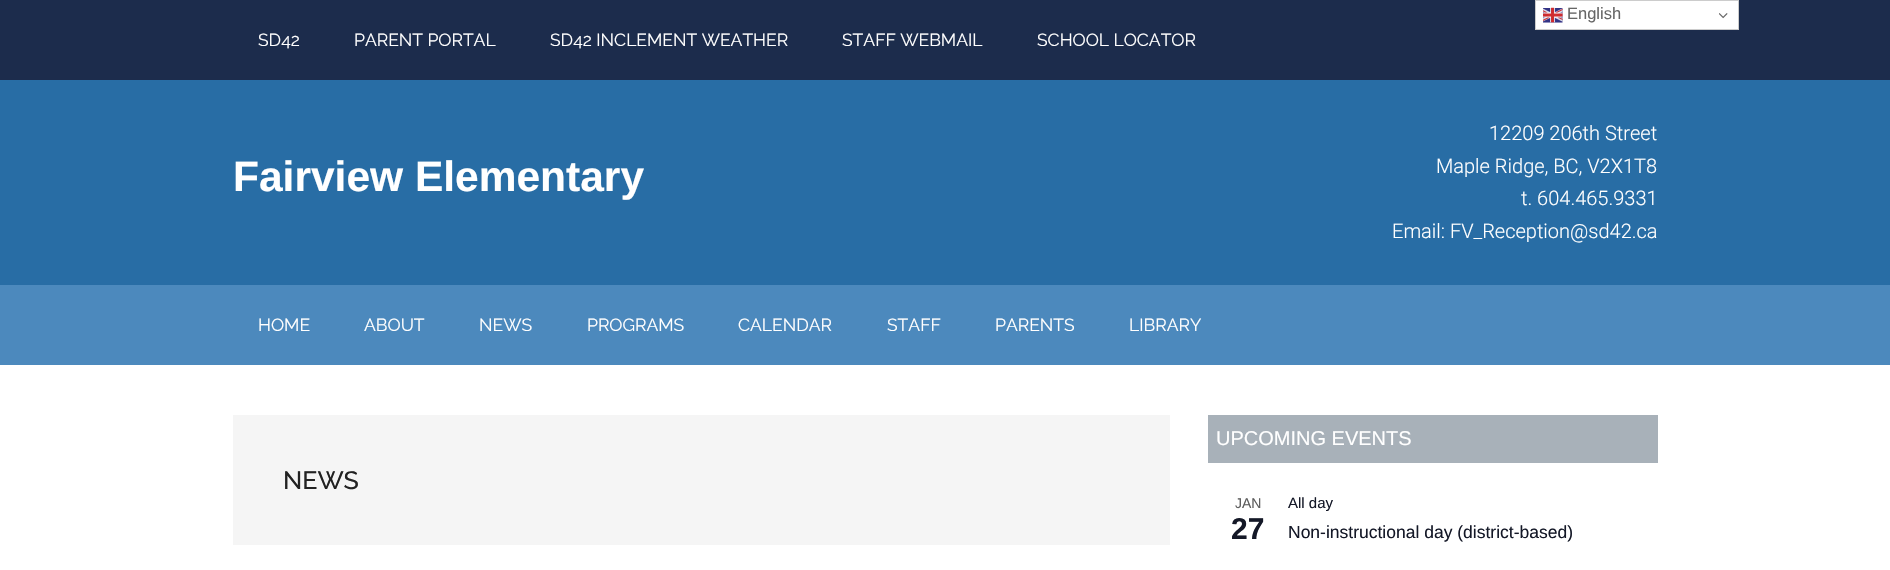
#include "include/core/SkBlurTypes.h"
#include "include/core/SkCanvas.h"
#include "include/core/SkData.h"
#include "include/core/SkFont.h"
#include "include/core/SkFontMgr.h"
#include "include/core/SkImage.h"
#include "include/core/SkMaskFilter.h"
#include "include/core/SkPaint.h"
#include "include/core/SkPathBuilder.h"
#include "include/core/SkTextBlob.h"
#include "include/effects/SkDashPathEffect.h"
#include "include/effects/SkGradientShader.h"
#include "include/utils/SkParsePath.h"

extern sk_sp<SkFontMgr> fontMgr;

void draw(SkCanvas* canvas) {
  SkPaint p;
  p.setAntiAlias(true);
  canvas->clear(SK_ColorWHITE);
  p.setColor(SkColorSetRGB(28, 44, 76));
  canvas->drawRect(SkRect::MakeLTRB(0, 0, 1890, 80), p);
  p.setColor(SK_ColorWHITE);
  canvas->drawRect(SkRect::MakeLTRB(1535.5f, 0.5f, 1738.5f, 29.5f), p);
  p.setStyle(SkPaint::kStroke_Style);
  p.setStrokeWidth(1);
  p.setColor(SkColorSetRGB(204, 204, 204));
  canvas->drawRect(SkRect::MakeLTRB(1535.5f, 0.5f, 1738.5f, 29.5f), p);
  canvas->drawImageRect(SkImages::DeferredFromEncodedData(SkData::MakeFromFileName("images/1.png")), SkRect::MakeLTRB(1543, 7, 1563, 23), SkSamplingOptions());
  canvas->drawImageRect(SkImages::DeferredFromEncodedData(SkData::MakeFromFileName("images/2.png")), SkRect::MakeLTRB(1719, 13, 1728, 19), SkSamplingOptions());
  p.setStyle(SkPaint::kFill_Style);
  p.setColor(SkColorSetRGB(40, 109, 165));
  canvas->drawRect(SkRect::MakeLTRB(0, 80, 1890, 285), p);
  p.setColor(SkColorSetRGB(76, 137, 189));
  canvas->drawRect(SkRect::MakeLTRB(0, 285, 1890, 365), p);
  p.setColor(SkColorSetRGB(245, 245, 245));
  canvas->drawRect(SkRect::MakeLTRB(233, 415, 1170, 545), p);
  p.setColor(SkColorSetRGB(168, 177, 185));
  canvas->drawRect(SkRect::MakeLTRB(1208, 415, 1658, 463), p);
  SkFont font1(fontMgr->matchFamilyStyle("Liberation Sans", SkFontStyle::Normal()), 16.5f);
  font1.setSubpixel(true);
  p.setColor(SkColorSetRGB(102, 102, 102));
  canvas->drawString("English", 1567, 19, font1, p);
  SkFont font2(fontMgr->matchFamilyStyle("Raleway", SkFontStyle::Normal()), 17.5f);
  font2.setSubpixel(true);
  p.setColor(SK_ColorWHITE);
  canvas->drawString("SD42", 258, 46, font2, p);
  canvas->drawString("PARENT PORTAL", 354, 46, font2, p);
  canvas->drawString("SD42 INCLEMENT WEATHER", 550, 46, font2, p);
  canvas->drawString("STAFF WEBMAIL", 842, 46, font2, p);
  canvas->drawString("SCHOOL LOCATOR", 1037, 46, font2, p);
  SkFont font3(fontMgr->matchFamilyStyle("Liberation Sans", SkFontStyle::Bold()), 42.5f);
  font3.setSubpixel(true);
  canvas->drawString("Fairview Elementary", 233, 191, font3, p);
  SkFont font4(fontMgr->matchFamilyStyle("Roboto", SkFontStyle(300, SkFontStyle::kNormal_Width, SkFontStyle::kUpright_Slant)), 20);
  font4.setSubpixel(true);
  canvas->drawString("12209 206th Street", 1489, 140, font4, p);
  canvas->drawString("Maple Ridge, BC, V2X1T8", 1436, 173, font4, p);
  canvas->drawString("t. 604.465.9331", 1521, 205, font4, p);
  canvas->drawString("Email: FV_Reception@sd42.ca", 1392, 238, font4, p);
  canvas->drawString("HOME", 258, 331, font2, p);
  canvas->drawString("ABOUT", 364, 331, font2, p);
  canvas->drawString("NEWS", 479, 331, font2, p);
  canvas->drawString("PROGRAMS", 587, 331, font2, p);
  canvas->drawString("CALENDAR", 738, 331, font2, p);
  canvas->drawString("STAFF", 887, 331, font2, p);
  canvas->drawString("PARENTS", 995, 331, font2, p);
  canvas->drawString("LIBRARY", 1129, 331, font2, p);
  SkFont font5(fontMgr->matchFamilyStyle("Raleway", SkFontStyle(500, SkFontStyle::kNormal_Width, SkFontStyle::kUpright_Slant)), 25);
  font5.setSubpixel(true);
  p.setColor(SkColorSetRGB(34, 34, 34));
  canvas->drawString("NEWS", 283, 489, font5, p);
  SkFont font6(fontMgr->matchFamilyStyle("Liberation Sans", SkFontStyle::Normal()), 20);
  font6.setSubpixel(true);
  p.setColor(SK_ColorWHITE);
  canvas->drawString("UPCOMING EVENTS", 1216, 445, font6, p);
  SkFont font7(fontMgr->matchFamilyStyle("Liberation Sans", SkFontStyle::Normal()), 14);
  font7.setSubpixel(true);
  p.setColor(SkColorSetRGB(93, 93, 93));
  canvas->drawString("JAN", 1235, 508, font7, p);
  SkFont font8(fontMgr->matchFamilyStyle("Liberation Sans", SkFontStyle::Bold()), 30);
  font8.setSubpixel(true);
  p.setColor(SkColorSetRGB(20, 24, 39));
  canvas->drawString("27", 1231, 539, font8, p);
  SkFont font9(fontMgr->matchFamilyStyle("Liberation Sans", SkFontStyle::Normal()), 15);
  font9.setSubpixel(true);
  canvas->drawString("All day", 1288, 508, font9, p);
  SkFont font10(fontMgr->matchFamilyStyle("Liberation Sans", SkFontStyle::Normal()), 17.5f);
  font10.setSubpixel(true);
  canvas->drawString("Non-instructional day (district-based)", 1288, 538, font10, p);
}
